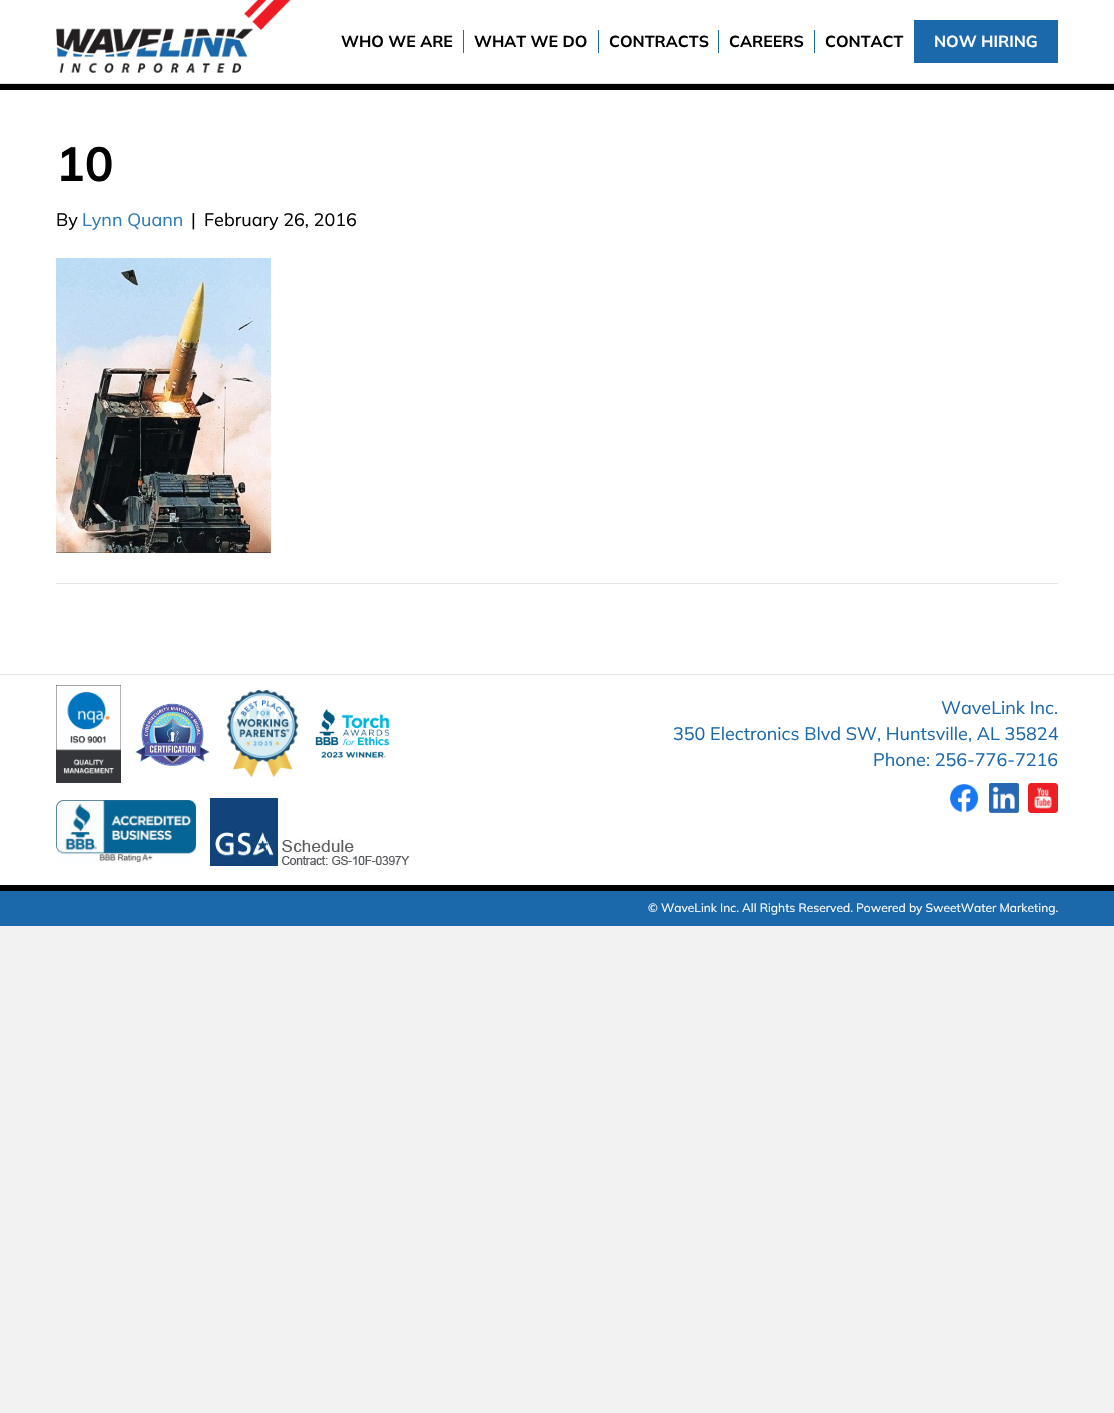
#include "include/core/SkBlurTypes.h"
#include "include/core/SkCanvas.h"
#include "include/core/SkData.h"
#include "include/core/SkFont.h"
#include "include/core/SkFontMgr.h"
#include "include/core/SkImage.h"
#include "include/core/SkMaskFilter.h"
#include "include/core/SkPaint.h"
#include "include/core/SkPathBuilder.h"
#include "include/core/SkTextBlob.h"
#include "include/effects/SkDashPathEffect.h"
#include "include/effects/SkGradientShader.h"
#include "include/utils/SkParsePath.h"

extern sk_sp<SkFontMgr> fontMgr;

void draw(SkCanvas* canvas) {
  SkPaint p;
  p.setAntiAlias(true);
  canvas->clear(SkColorSetRGB(242, 242, 242));
  p.setColor(SK_ColorWHITE);
  canvas->drawRect(SkRect::MakeLTRB(0, 0, 1114, 83), p);
  p.setColor(SK_ColorBLACK);
  canvas->drawRect(SkRect::MakeLTRB(0, 84, 1114, 90), p);
  p.setColor(SkColorSetRGB(222, 222, 222));
  canvas->drawRect(SkRect::MakeLTRB(0, 83, 1114, 84), p);
  canvas->drawImageRect(SkImages::DeferredFromEncodedData(SkData::MakeFromFileName("images/1.png")), SkRect::MakeLTRB(56, 0, 291, 73), SkSamplingOptions());
  p.setColor(SkColorSetRGB(27, 104, 170));
  canvas->drawRect(SkRect::MakeLTRB(463, 30, 464, 53), p);
  canvas->drawRect(SkRect::MakeLTRB(598, 30, 599, 53), p);
  canvas->drawRect(SkRect::MakeLTRB(718, 30, 719, 53), p);
  canvas->drawRect(SkRect::MakeLTRB(814, 30, 815, 53), p);
  canvas->drawRect(SkRect::MakeLTRB(914, 20, 1058, 63), p);
  p.setColor(SK_ColorWHITE);
  canvas->drawRect(SkRect::MakeLTRB(0, 90, 1114, 674), p);
  canvas->drawImageRect(SkImages::DeferredFromEncodedData(SkData::MakeFromFileName("images/2.png")), SkRect::MakeLTRB(56, 258, 271, 553), SkSamplingOptions());
  p.setColor(SkColorSetRGB(230, 230, 230));
  canvas->drawRect(SkRect::MakeLTRB(56, 583, 1058, 584), p);
  p.setColor(SK_ColorWHITE);
  canvas->drawRect(SkRect::MakeLTRB(0, 675, 1114, 885), p);
  p.setColor(SkColorSetRGB(230, 230, 230));
  canvas->drawRect(SkRect::MakeLTRB(0, 674, 1114, 675), p);
  canvas->drawImageRect(SkImages::DeferredFromEncodedData(SkData::MakeFromFileName("images/3.png")), SkRect::MakeLTRB(56, 685, 121, 783), SkSamplingOptions());
  canvas->drawImageRect(SkImages::DeferredFromEncodedData(SkData::MakeFromFileName("images/4.png")), SkRect::MakeLTRB(135, 702, 210, 766), SkSamplingOptions());
  canvas->drawImageRect(SkImages::DeferredFromEncodedData(SkData::MakeFromFileName("images/5.png")), SkRect::MakeLTRB(226, 690, 299, 778), SkSamplingOptions());
  canvas->drawImageRect(SkImages::DeferredFromEncodedData(SkData::MakeFromFileName("images/6.png")), SkRect::MakeLTRB(315, 708, 390, 758), SkSamplingOptions());
  canvas->drawImageRect(SkImages::DeferredFromEncodedData(SkData::MakeFromFileName("images/7.png")), SkRect::MakeLTRB(56, 800, 196, 862), SkSamplingOptions());
  canvas->drawImageRect(SkImages::DeferredFromEncodedData(SkData::MakeFromFileName("images/8.png")), SkRect::MakeLTRB(210, 791, 410, 871), SkSamplingOptions());
  canvas->drawImageRect(SkImages::DeferredFromEncodedData(SkData::MakeFromFileName("images/9.png")), SkRect::MakeLTRB(950, 784, 979, 813), SkSamplingOptions());
  canvas->drawImageRect(SkImages::DeferredFromEncodedData(SkData::MakeFromFileName("images/10.png")), SkRect::MakeLTRB(989, 783, 1019, 813), SkSamplingOptions());
  canvas->drawImageRect(SkImages::DeferredFromEncodedData(SkData::MakeFromFileName("images/11.png")), SkRect::MakeLTRB(1028, 783, 1058, 813), SkSamplingOptions());
  p.setColor(SkColorSetRGB(27, 104, 170));
  canvas->drawRect(SkRect::MakeLTRB(0, 891, 1114, 926), p);
  p.setColor(SK_ColorBLACK);
  canvas->drawRect(SkRect::MakeLTRB(0, 885, 1114, 891), p);
  SkFont font1(fontMgr->matchFamilyStyle("Mulish", SkFontStyle::Bold()), 16);
  font1.setSubpixel(true);
  canvas->drawString("WHO WE ARE", 341, 47, font1, p);
  canvas->drawString("WHAT WE DO", 474, 47, font1, p);
  canvas->drawString("CONTRACTS", 609, 47, font1, p);
  canvas->drawString("CAREERS", 729, 47, font1, p);
  canvas->drawString("CONTACT", 825, 47, font1, p);
  p.setColor(SK_ColorWHITE);
  canvas->drawString("NOW HIRING", 934, 47, font1, p);
  SkFont font2(fontMgr->matchFamilyStyle("Mulish", SkFontStyle::Bold()), 48);
  font2.setSubpixel(true);
  p.setColor(SK_ColorBLACK);
  canvas->drawString("10", 56, 181, font2, p);
  SkFont font3(fontMgr->matchFamilyStyle("Mulish", SkFontStyle::Normal()), 18);
  font3.setSubpixel(true);
  canvas->drawString("By", 56, 226, font3, p);
  p.setColor(SkColorSetRGB(43, 123, 185));
  canvas->drawString("Lynn Quann", 82, 226, font3, p);
  p.setColor(SK_ColorBLACK);
  canvas->drawString("|", 191, 226, font3, p);
  canvas->drawString("February 26, 2016", 204, 226, font3, p);
  p.setColor(SkColorSetRGB(27, 104, 170));
  canvas->drawString("WaveLink Inc.", 941, 714, font3, p);
  canvas->drawString("350 Electronics Blvd SW, Huntsville, AL 35824", 673, 740, font3, p);
  canvas->drawString("Phone: 256-776-7216", 873, 766, font3, p);
  SkFont font4(fontMgr->matchFamilyStyle("Mulish", SkFontStyle::Normal()), 12);
  font4.setSubpixel(true);
  p.setColor(SK_ColorWHITE);
  canvas->drawString("© WaveLink Inc. All Rights Reserved. Powered by SweetWater Marketing.", 648, 912, font4, p);
}
